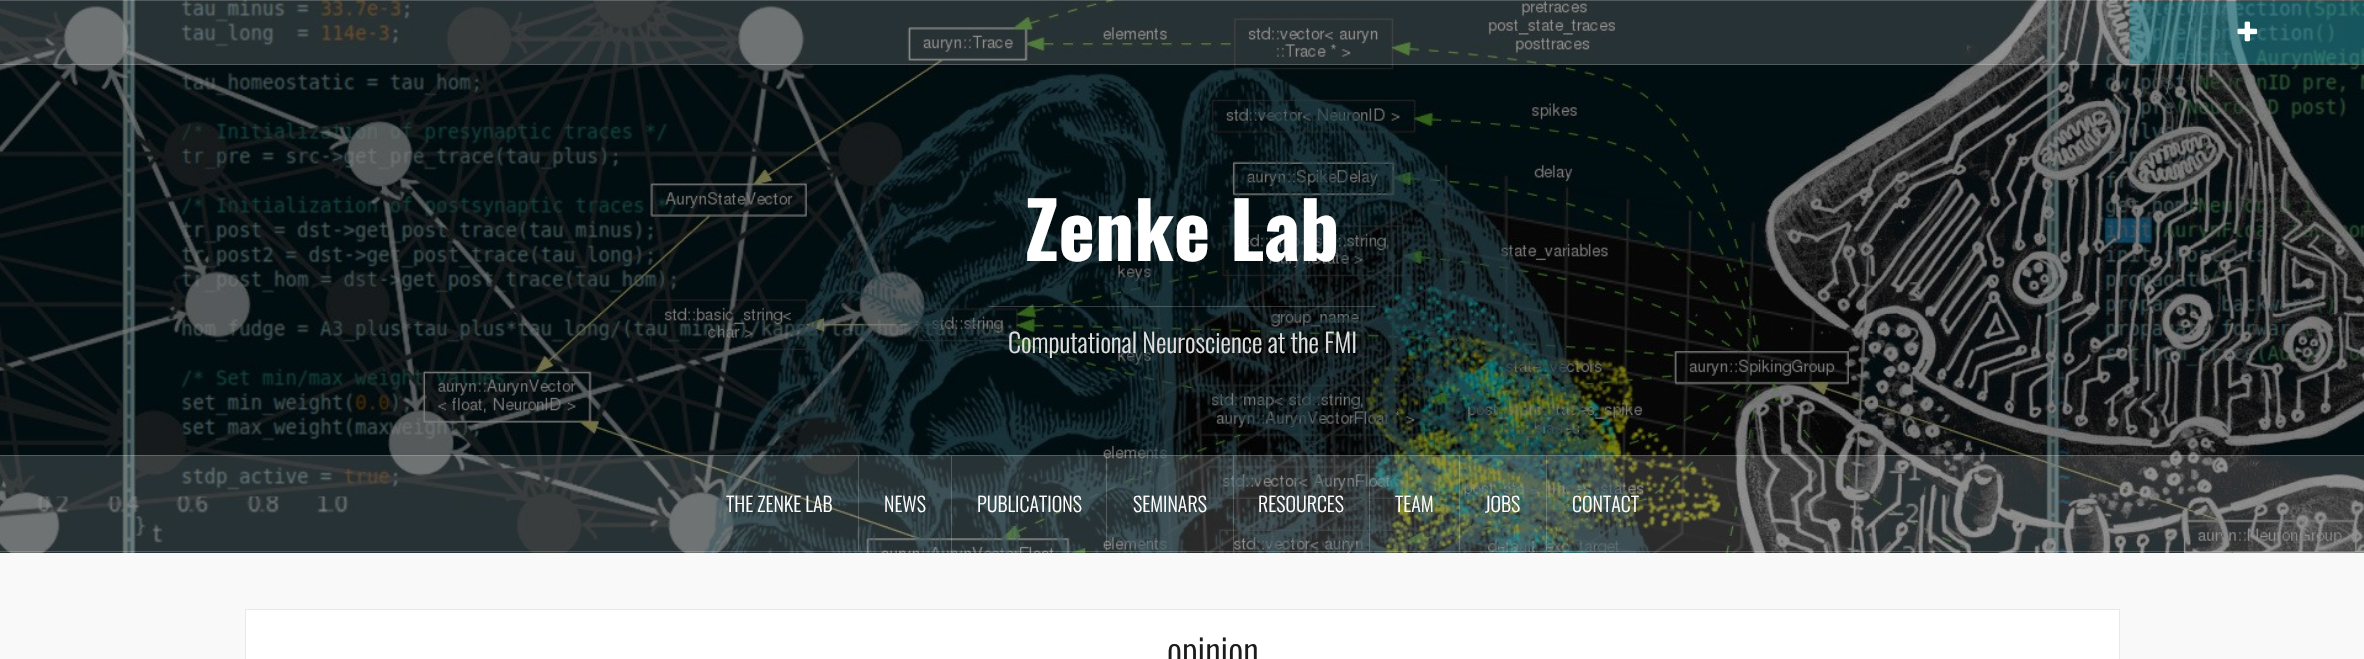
#include "include/core/SkBlurTypes.h"
#include "include/core/SkCanvas.h"
#include "include/core/SkData.h"
#include "include/core/SkFont.h"
#include "include/core/SkFontMgr.h"
#include "include/core/SkImage.h"
#include "include/core/SkMaskFilter.h"
#include "include/core/SkPaint.h"
#include "include/core/SkPathBuilder.h"
#include "include/core/SkTextBlob.h"
#include "include/effects/SkDashPathEffect.h"
#include "include/effects/SkGradientShader.h"
#include "include/utils/SkParsePath.h"

extern sk_sp<SkFontMgr> fontMgr;

void draw(SkCanvas* canvas) {
  SkPaint p;
  p.setAntiAlias(true);
  canvas->clear(SkColorSetRGB(249, 249, 249));
  canvas->drawImageRect(SkImages::DeferredFromEncodedData(SkData::MakeFromFileName("images/1.png")), SkRect::MakeLTRB(0, 0, 2364, 553), SkSamplingOptions());
  p.setColor(SkColorSetARGB(38, 255, 255, 255));
  canvas->drawRect(SkRect::MakeLTRB(0, 0, 2364, 65), p);
  p.setColor(SkColorSetARGB(51, 255, 255, 255));
  canvas->drawRect(SkRect::MakeLTRB(0, 0, 2364, 1), p);
  canvas->drawRect(SkRect::MakeLTRB(0, 64, 2364, 65), p);
  p.setColor(SkColorSetARGB(102, 0, 138, 155));
  canvas->drawRect(SkRect::MakeLTRB(2129, 1, 2364, 64), p);
  canvas->drawImageRect(SkImages::DeferredFromEncodedData(SkData::MakeFromFileName("images/2.png")), SkRect::MakeLTRB(2237, 21, 2258, 42), SkSamplingOptions());
  p.setColor(SkColorSetARGB(51, 255, 255, 255));
  canvas->drawRect(SkRect::MakeLTRB(989, 306, 1376, 307), p);
  p.setColor(SkColorSetARGB(38, 255, 255, 255));
  canvas->drawRect(SkRect::MakeLTRB(0, 455, 2364, 553), p);
  p.setColor(SkColorSetARGB(51, 255, 255, 255));
  canvas->drawRect(SkRect::MakeLTRB(0, 455, 2364, 456), p);
  canvas->drawRect(SkRect::MakeLTRB(0, 551, 2364, 552), p);
  canvas->drawRect(SkRect::MakeLTRB(858, 456, 859, 551), p);
  canvas->drawRect(SkRect::MakeLTRB(951, 456, 952, 551), p);
  canvas->drawRect(SkRect::MakeLTRB(1106, 456, 1107, 551), p);
  canvas->drawRect(SkRect::MakeLTRB(1233, 456, 1234, 551), p);
  canvas->drawRect(SkRect::MakeLTRB(1369, 456, 1370, 551), p);
  canvas->drawRect(SkRect::MakeLTRB(1459, 456, 1460, 551), p);
  canvas->drawRect(SkRect::MakeLTRB(1546, 456, 1547, 551), p);
  p.setColor(SK_ColorWHITE);
  canvas->drawRect(SkRect::MakeLTRB(245.5f, 609.5f, 2119.5f, 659.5f), p);
  p.setStyle(SkPaint::kStroke_Style);
  p.setStrokeWidth(1);
  p.setColor(SkColorSetRGB(232, 232, 232));
  canvas->drawRect(SkRect::MakeLTRB(245.5f, 609.5f, 2119.5f, 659.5f), p);
  SkFont font1(fontMgr->matchFamilyStyle("Oswald", SkFontStyle::Bold()), 77.5f);
  font1.setSubpixel(true);
  p.setStyle(SkPaint::kFill_Style);
  p.setColor(SK_ColorWHITE);
  canvas->drawString("Zenke Lab", 1025, 261, font1, p);
  SkFont font2(fontMgr->matchFamilyStyle("Oswald", SkFontStyle(300, SkFontStyle::kNormal_Width, SkFontStyle::kUpright_Slant)), 26.25f);
  font2.setSubpixel(true);
  p.setColor(SkColorSetRGB(224, 224, 224));
  canvas->drawString("Computational Neuroscience at the FMI", 1008, 353, font2, p);
  SkFont font3(fontMgr->matchFamilyStyle("Oswald", SkFontStyle(300, SkFontStyle::kNormal_Width, SkFontStyle::kUpright_Slant)), 20);
  font3.setSubpixel(true);
  p.setColor(SK_ColorWHITE);
  canvas->drawString("THE ZENKE LAB", 726, 512, font3, p);
  canvas->drawString("NEWS", 884, 512, font3, p);
  canvas->drawString("PUBLICATIONS", 977, 512, font3, p);
  canvas->drawString("SEMINARS", 1133, 512, font3, p);
  canvas->drawString("RESOURCES", 1258, 512, font3, p);
  canvas->drawString("TEAM", 1395, 512, font3, p);
  canvas->drawString("JOBS", 1485, 512, font3, p);
  canvas->drawString("CONTACT", 1572, 512, font3, p);
  SkFont font4(fontMgr->matchFamilyStyle("Oswald", SkFontStyle(300, SkFontStyle::kNormal_Width, SkFontStyle::kUpright_Slant)), 37.5f);
  font4.setSubpixel(true);
  p.setColor(SkColorSetRGB(28, 28, 28));
  canvas->drawString("opinion", 1167, 666, font4, p);
}
